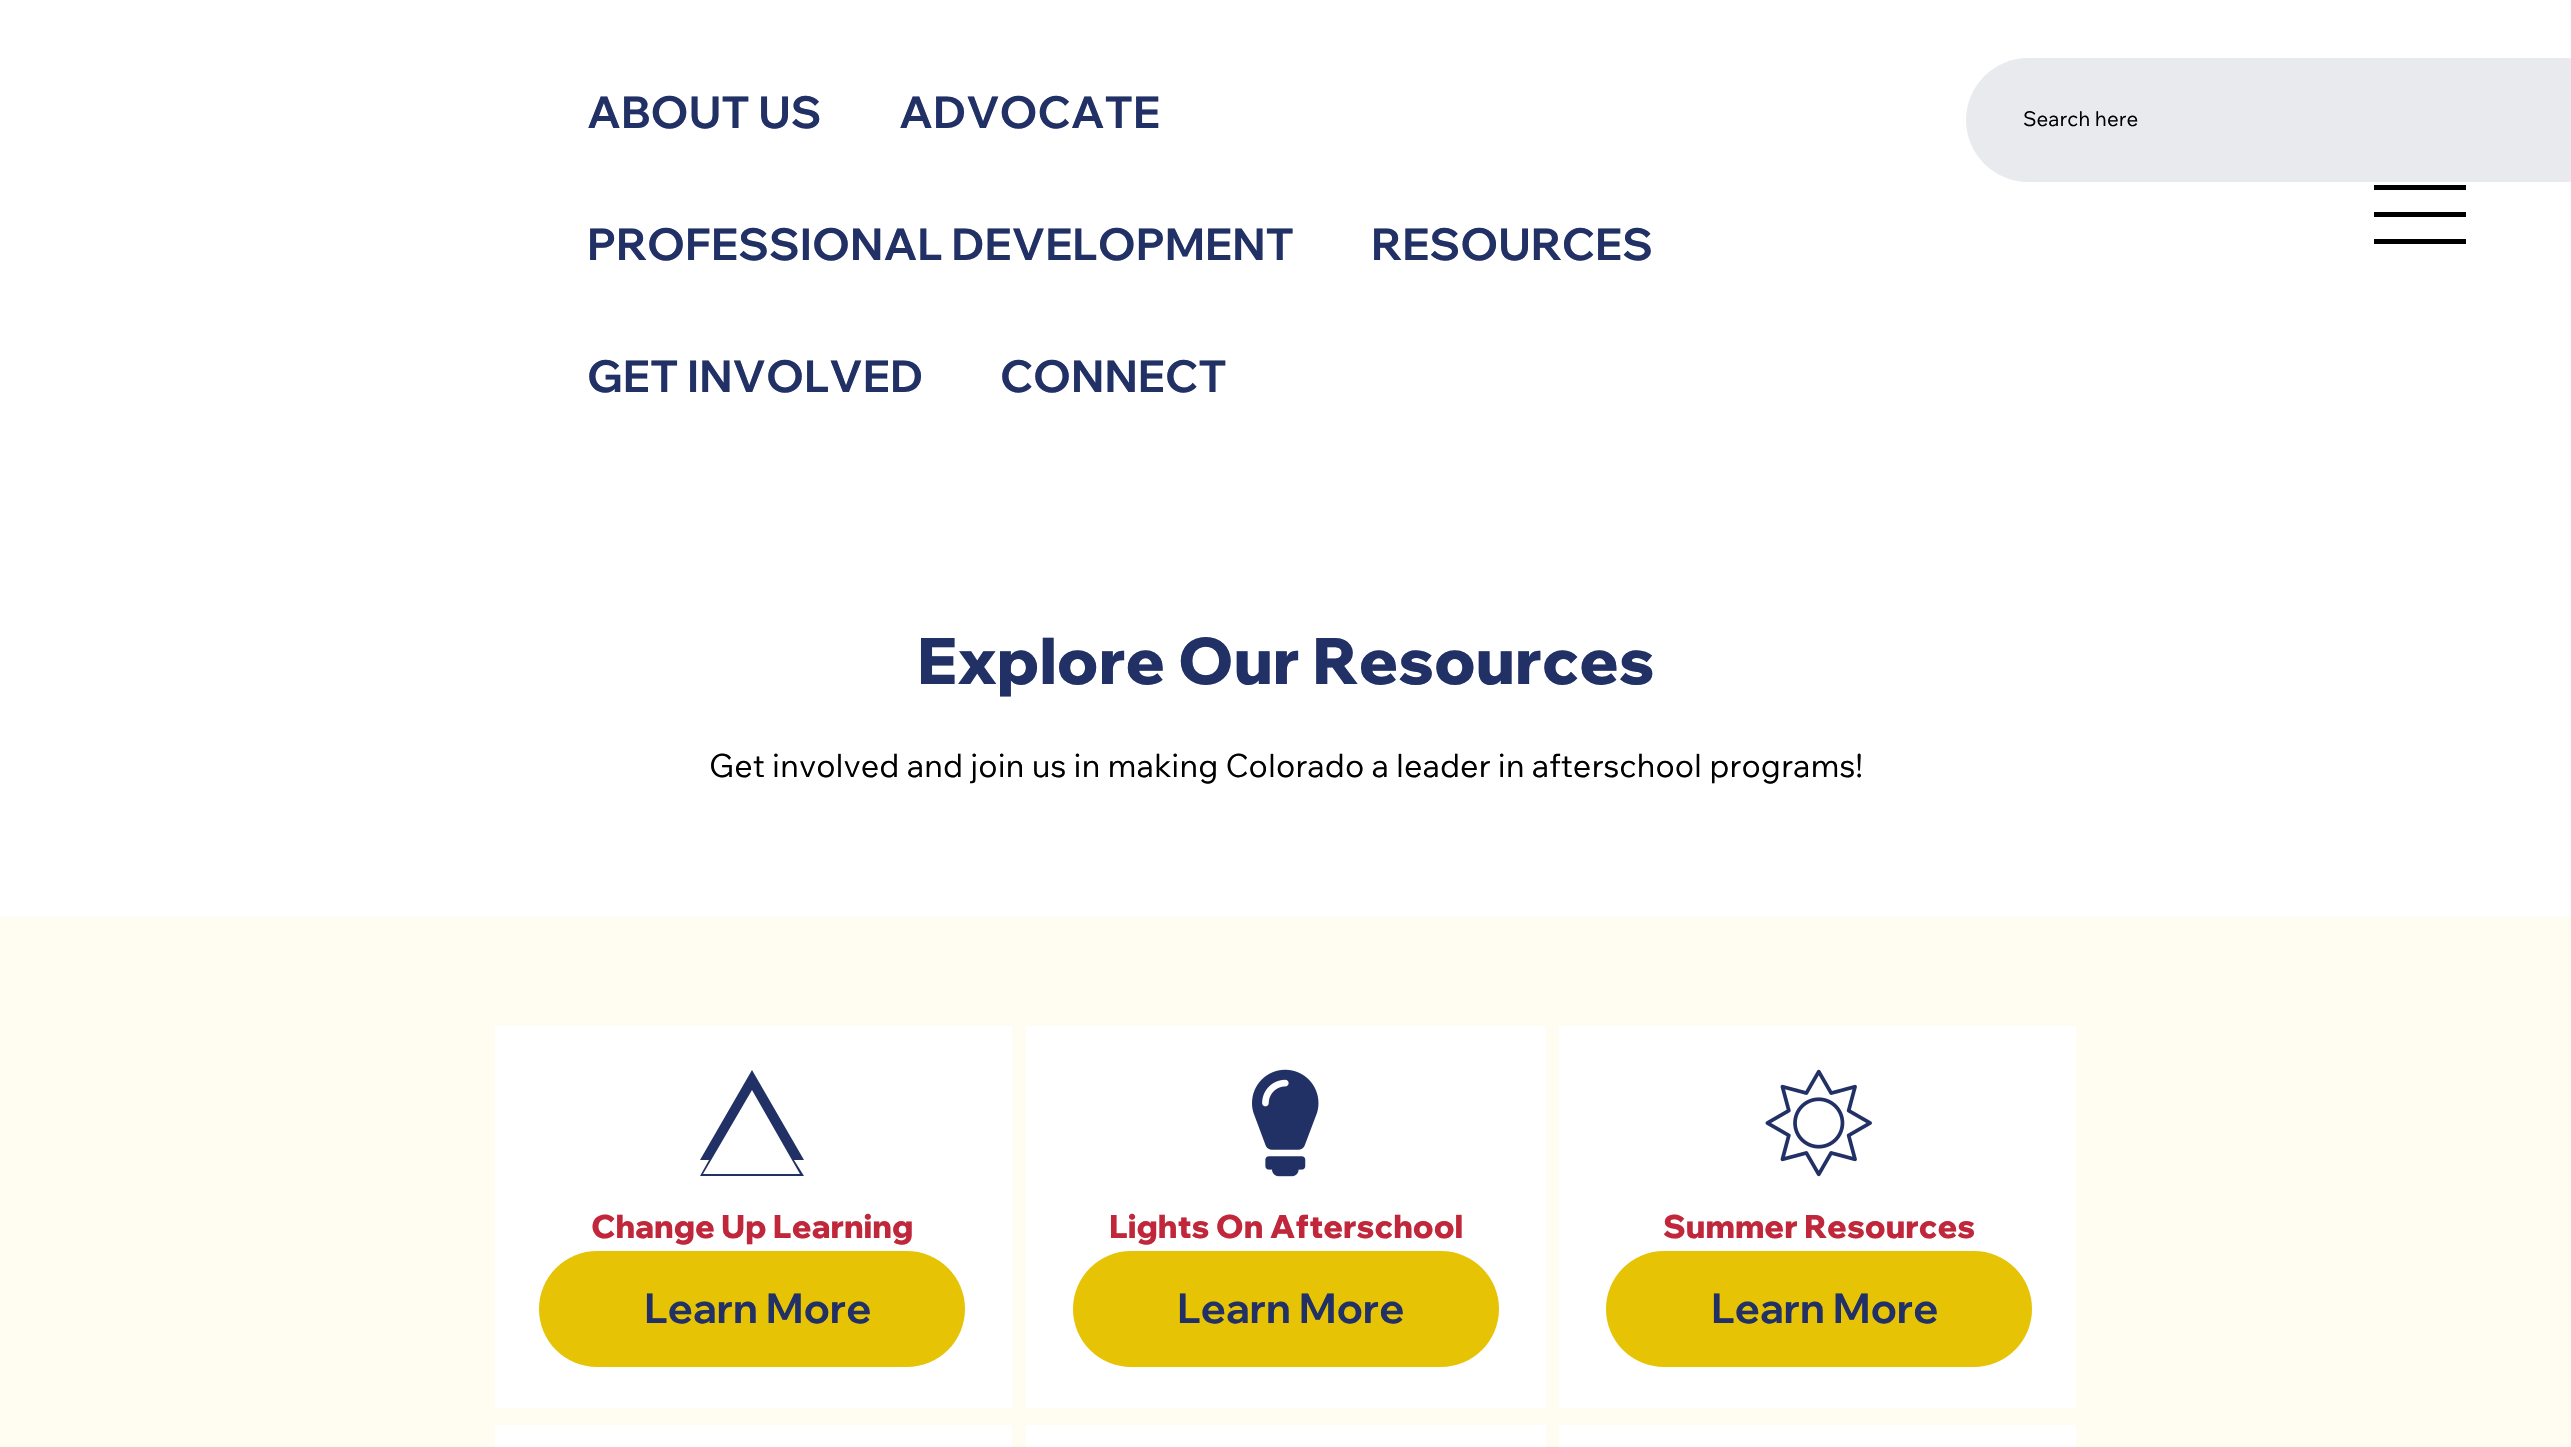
#include "include/core/SkBlurTypes.h"
#include "include/core/SkCanvas.h"
#include "include/core/SkData.h"
#include "include/core/SkFont.h"
#include "include/core/SkFontMgr.h"
#include "include/core/SkImage.h"
#include "include/core/SkMaskFilter.h"
#include "include/core/SkPaint.h"
#include "include/core/SkPathBuilder.h"
#include "include/core/SkTextBlob.h"
#include "include/effects/SkDashPathEffect.h"
#include "include/effects/SkGradientShader.h"
#include "include/utils/SkParsePath.h"

extern sk_sp<SkFontMgr> fontMgr;

void draw(SkCanvas* canvas) {
  SkPaint p;
  p.setAntiAlias(true);
  auto spacedText = [&](const char* s, float x, float y, const SkFont& font, const SkPaint& ink, float letter, float word) {
    std::vector<SkGlyphID> glyphs(font.countText(s, strlen(s), SkTextEncoding::kUTF8));
    std::vector<float> xs(glyphs.size());
    font.textToGlyphs(s, strlen(s), SkTextEncoding::kUTF8, glyphs);
    font.getXPos(glyphs, xs, x);
    float extra = 0;
    for (size_t i = 0; i < glyphs.size(); i++) {
      xs[i] += extra;
      extra += letter + word * (glyphs[i] == font.unicharToGlyph(' '));
    }
    canvas->drawTextBlob(SkTextBlob::MakeFromPosHGlyphs(glyphs, xs, y, font), 0, 0, ink);
  };
  canvas->clear(SK_ColorWHITE);
  p.setColor(SkColorSetRGB(232, 234, 237));
  canvas->drawPath(SkPathBuilder().moveTo(2028, 58).lineTo(2571, 58).lineTo(2571, 182).lineTo(2028, 182).cubicTo(1994, 182, 1966, 154, 1966, 120).cubicTo(1966, 86, 1994, 58, 2028, 58).close().detach(), p);
  p.setColor(SK_ColorBLACK);
  canvas->drawRect(SkRect::MakeLTRB(2374, 185, 2466, 190), p);
  canvas->drawRect(SkRect::MakeLTRB(2374, 212, 2466, 217), p);
  canvas->drawRect(SkRect::MakeLTRB(2374, 239, 2466, 244), p);
  p.setColor(SkColorSetRGB(255, 253, 242));
  canvas->drawRect(SkRect::MakeLTRB(0, 916, 2571, 1447), p);
  p.setColor(SK_ColorWHITE);
  canvas->drawRect(SkRect::MakeLTRB(495, 1026, 1012, 1408), p);
  p.setColor(SkColorSetRGB(33, 48, 101));
  canvas->drawPath(SkPathBuilder().moveTo(804, 1160).lineTo(752, 1070).lineTo(700, 1160).lineTo(709, 1160).lineTo(700, 1176).lineTo(804, 1176).lineTo(794, 1160).close().moveTo(800, 1174).lineTo(703, 1174).lineTo(752, 1090).close().detach(), p);
  p.setColor(SkColorSetRGB(230, 195, 4));
  canvas->drawRoundRect(SkRect::MakeLTRB(539, 1251, 965, 1367), 58, 58, p);
  p.setColor(SK_ColorWHITE);
  canvas->drawRect(SkRect::MakeLTRB(1026, 1026, 1546, 1408), p);
  canvas->drawImageRect(SkImages::DeferredFromEncodedData(SkData::MakeFromFileName("images/1.png")), SkRect::MakeLTRB(1252, 1069, 1319, 1177), SkSamplingOptions());
  p.setColor(SkColorSetRGB(230, 195, 4));
  canvas->drawRoundRect(SkRect::MakeLTRB(1073, 1251, 1499, 1367), 58, 58, p);
  p.setColor(SK_ColorWHITE);
  canvas->drawRect(SkRect::MakeLTRB(1559, 1026, 2076, 1408), p);
  canvas->drawImageRect(SkImages::DeferredFromEncodedData(SkData::MakeFromFileName("images/2.png")), SkRect::MakeLTRB(1765, 1069, 1872, 1177), SkSamplingOptions());
  p.setColor(SkColorSetRGB(230, 195, 4));
  canvas->drawRoundRect(SkRect::MakeLTRB(1606, 1251, 2032, 1367), 58, 58, p);
  p.setColor(SK_ColorWHITE);
  canvas->drawRect(SkRect::MakeLTRB(495, 1425, 1012, 1447), p);
  canvas->drawRect(SkRect::MakeLTRB(1026, 1425, 1546, 1447), p);
  canvas->drawRect(SkRect::MakeLTRB(1559, 1425, 2076, 1447), p);
  SkFont font1(fontMgr->matchFamilyStyle("Wix Madefor Display", SkFontStyle::Bold()), 44);
  font1.setSubpixel(true);
  p.setColor(SkColorSetRGB(33, 48, 101));
  canvas->drawString("ABOUT US", 587, 128, font1, p);
  canvas->drawString("ADVOCATE", 899, 128, font1, p);
  canvas->drawString("PROFESSIONAL DEVELOPMENT", 587, 260, font1, p);
  canvas->drawString("RESOURCES", 1371, 260, font1, p);
  canvas->drawString("GET INVOLVED", 587, 392, font1, p);
  canvas->drawString("CONNECT", 1000, 392, font1, p);
  SkFont font2(fontMgr->matchFamilyStyle("Wix Madefor Text", SkFontStyle::Normal()), 20.5f);
  font2.setSubpixel(true);
  p.setColor(SK_ColorBLACK);
  canvas->drawString("Search here", 2023, 126, font2, p);
  SkFont font3(fontMgr->matchFamilyStyle("Wix Madefor Display", SkFontStyle(800, SkFontStyle::kNormal_Width, SkFontStyle::kUpright_Slant)), 64.25f);
  font3.setSubpixel(true);
  p.setColor(SkColorSetRGB(33, 48, 101));
  canvas->drawString("Explore Our Resources", 917, 684, font3, p);
  SkFont font4(fontMgr->matchFamilyStyle("Wix Madefor Text", SkFontStyle::Normal()), 32.15f);
  font4.setSubpixel(true);
  p.setColor(SK_ColorBLACK);
  spacedText("Get involved and join us in making Colorado a leader in afterschool programs!", 709, 777, font4, p, 0, -0.1f);
  SkFont font5(fontMgr->matchFamilyStyle("Wix Madefor Display", SkFontStyle(800, SkFontStyle::kNormal_Width, SkFontStyle::kUpright_Slant)), 32.15f);
  font5.setSubpixel(true);
  p.setColor(SkColorSetRGB(193, 39, 58));
  canvas->drawString("Change Up Learning", 591, 1238, font5, p);
  SkFont font6(fontMgr->matchFamilyStyle("Wix Madefor Display", SkFontStyle::Bold()), 41.25f);
  font6.setSubpixel(true);
  p.setColor(SkColorSetRGB(33, 48, 101));
  canvas->drawString("Learn More", 644, 1323, font6, p);
  p.setColor(SkColorSetRGB(193, 39, 58));
  canvas->drawString("Lights On Afterschool", 1109, 1238, font5, p);
  p.setColor(SkColorSetRGB(33, 48, 101));
  canvas->drawString("Learn More", 1177, 1323, font6, p);
  p.setColor(SkColorSetRGB(193, 39, 58));
  canvas->drawString("Summer Resources", 1663, 1238, font5, p);
  p.setColor(SkColorSetRGB(33, 48, 101));
  canvas->drawString("Learn More", 1711, 1323, font6, p);
}
